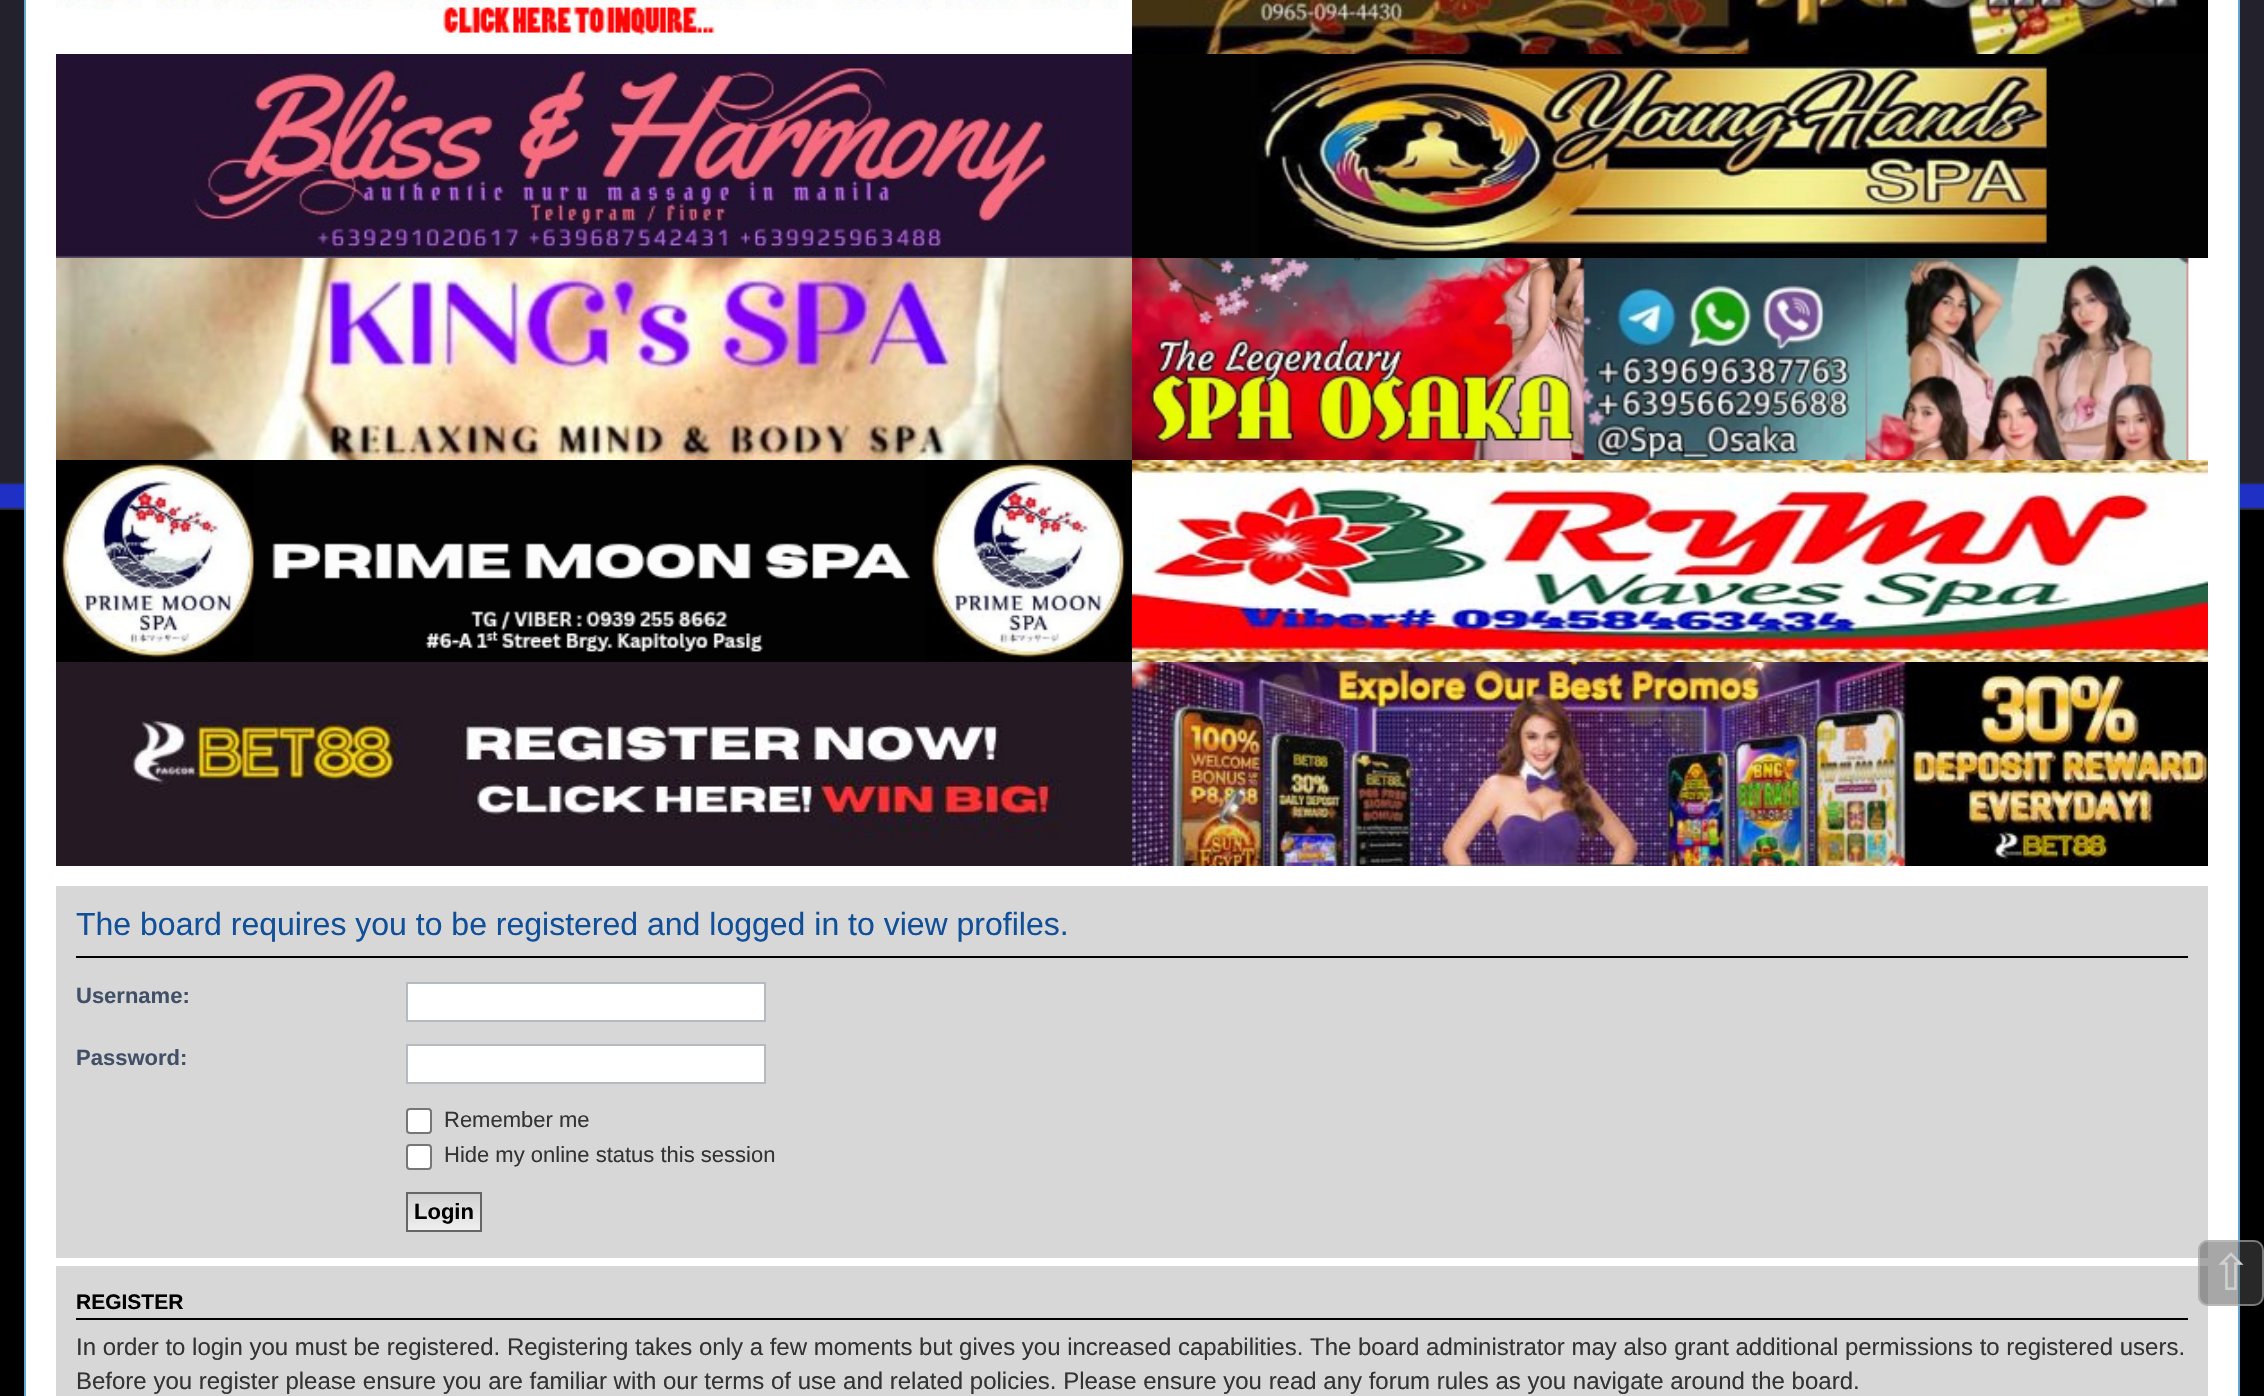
#include "include/core/SkBlurTypes.h"
#include "include/core/SkCanvas.h"
#include "include/core/SkData.h"
#include "include/core/SkFont.h"
#include "include/core/SkFontMgr.h"
#include "include/core/SkImage.h"
#include "include/core/SkMaskFilter.h"
#include "include/core/SkPaint.h"
#include "include/core/SkPathBuilder.h"
#include "include/core/SkTextBlob.h"
#include "include/effects/SkDashPathEffect.h"
#include "include/effects/SkGradientShader.h"
#include "include/utils/SkParsePath.h"

extern sk_sp<SkFontMgr> fontMgr;

void draw(SkCanvas* canvas) {
  SkPaint p;
  p.setAntiAlias(true);
  canvas->clear(SK_ColorBLACK);
  canvas->drawImageRect(SkImages::DeferredFromEncodedData(SkData::MakeFromFileName("images/1.png")), SkRect::MakeLTRB(0, 0, 2264, 510), SkSamplingOptions());
  p.setColor(SK_ColorWHITE);
  canvas->drawRect(SkRect::MakeLTRB(25, -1, 2239, 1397), p);
  p.setStyle(SkPaint::kStroke_Style);
  p.setStrokeWidth(2);
  p.setColor(SkColorSetRGB(95, 168, 211));
  canvas->drawRect(SkRect::MakeLTRB(25, -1, 2239, 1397), p);
  canvas->drawImageRect(SkImages::DeferredFromEncodedData(SkData::MakeFromFileName("images/2.png")), SkRect::MakeLTRB(56, 0, 1118, 38), SkSamplingOptions());
  canvas->drawImageRect(SkImages::DeferredFromEncodedData(SkData::MakeFromFileName("images/3.png")), SkRect::MakeLTRB(1132, 0, 2208, 54), SkSamplingOptions());
  canvas->drawImageRect(SkImages::DeferredFromEncodedData(SkData::MakeFromFileName("images/4.png")), SkRect::MakeLTRB(56, 54, 1132, 258), SkSamplingOptions());
  canvas->drawImageRect(SkImages::DeferredFromEncodedData(SkData::MakeFromFileName("images/5.png")), SkRect::MakeLTRB(1132, 54, 2208, 258), SkSamplingOptions());
  canvas->drawImageRect(SkImages::DeferredFromEncodedData(SkData::MakeFromFileName("images/6.png")), SkRect::MakeLTRB(56, 258, 1132, 460), SkSamplingOptions());
  canvas->drawImageRect(SkImages::DeferredFromEncodedData(SkData::MakeFromFileName("images/7.png")), SkRect::MakeLTRB(1132, 258, 2189, 460), SkSamplingOptions());
  canvas->drawImageRect(SkImages::DeferredFromEncodedData(SkData::MakeFromFileName("images/8.png")), SkRect::MakeLTRB(56, 460, 1132, 662), SkSamplingOptions());
  canvas->drawImageRect(SkImages::DeferredFromEncodedData(SkData::MakeFromFileName("images/9.png")), SkRect::MakeLTRB(1132, 460, 2208, 662), SkSamplingOptions());
  canvas->drawImageRect(SkImages::DeferredFromEncodedData(SkData::MakeFromFileName("images/10.png")), SkRect::MakeLTRB(56, 662, 1132, 866), SkSamplingOptions());
  canvas->drawImageRect(SkImages::DeferredFromEncodedData(SkData::MakeFromFileName("images/11.png")), SkRect::MakeLTRB(1132, 662, 2208, 866), SkSamplingOptions());
  p.setStyle(SkPaint::kFill_Style);
  p.setColor(SkColorSetRGB(215, 215, 215));
  canvas->drawRect(SkRect::MakeLTRB(56, 886, 2208, 1258), p);
  p.setColor(SK_ColorBLACK);
  canvas->drawRect(SkRect::MakeLTRB(76, 956, 2188, 958), p);
  p.setColor(SK_ColorWHITE);
  canvas->drawRect(SkRect::MakeLTRB(407, 983, 765, 1021), p);
  p.setStyle(SkPaint::kStroke_Style);
  p.setColor(SkColorSetRGB(180, 186, 192));
  canvas->drawRect(SkRect::MakeLTRB(407, 983, 765, 1021), p);
  p.setStyle(SkPaint::kFill_Style);
  p.setColor(SK_ColorWHITE);
  canvas->drawRect(SkRect::MakeLTRB(407, 1045, 765, 1083), p);
  p.setStyle(SkPaint::kStroke_Style);
  p.setColor(SkColorSetRGB(180, 186, 192));
  canvas->drawRect(SkRect::MakeLTRB(407, 1045, 765, 1083), p);
  p.setStyle(SkPaint::kFill_Style);
  p.setColor(SK_ColorWHITE);
  canvas->drawRoundRect(SkRect::MakeLTRB(407, 1109, 431, 1133), 3, 3, p);
  p.setStyle(SkPaint::kStroke_Style);
  p.setColor(SkColorSetRGB(118, 118, 118));
  canvas->drawRoundRect(SkRect::MakeLTRB(407, 1109, 431, 1133), 3, 3, p);
  p.setStyle(SkPaint::kFill_Style);
  p.setColor(SK_ColorWHITE);
  canvas->drawRoundRect(SkRect::MakeLTRB(407, 1145, 431, 1169), 3, 3, p);
  p.setStyle(SkPaint::kStroke_Style);
  p.setColor(SkColorSetRGB(118, 118, 118));
  canvas->drawRoundRect(SkRect::MakeLTRB(407, 1145, 431, 1169), 3, 3, p);
  p.setStyle(SkPaint::kFill_Style);
  {
    const SkColor colors[] = {SkColorSetRGB(210, 210, 210), SkColorSetRGB(239, 239, 239)};
    const float stops[] = {0, 1};
    const SkPoint ends[] = {{444, 1194}, {444, 1230}};
    p.setShader(SkGradientShader::MakeLinear(ends, colors, stops, 2, SkTileMode::kClamp));
    p.setAlpha(255);
  }
  canvas->drawRect(SkRect::MakeLTRB(408, 1194, 480, 1230), p);
  p.setStyle(SkPaint::kStroke_Style);
  p.setShader(nullptr);
  p.setColor(SkColorSetRGB(102, 102, 102));
  canvas->drawRect(SkRect::MakeLTRB(407, 1193, 481, 1231), p);
  p.setStyle(SkPaint::kFill_Style);
  p.setColor(SkColorSetRGB(215, 215, 215));
  canvas->drawRect(SkRect::MakeLTRB(56, 1266, 2208, 1396), p);
  p.setColor(SK_ColorBLACK);
  canvas->drawRect(SkRect::MakeLTRB(76, 1318, 2188, 1320), p);
  p.setColor(SkColorSetARGB(128, 79, 79, 79));
  canvas->drawRoundRect(SkRect::MakeLTRB(2198, 1240, 2264, 1306), 10, 10, p);
  p.setStyle(SkPaint::kStroke_Style);
  p.setColor(SkColorSetARGB(128, 204, 204, 204));
  canvas->drawRoundRect(SkRect::MakeLTRB(2199, 1241, 2263, 1305), 9, 9, p);
  SkFont font1(fontMgr->matchFamilyStyle("Liberation Sans", SkFontStyle::Normal()), 32);
  font1.setSubpixel(true);
  p.setStyle(SkPaint::kFill_Style);
  p.setColor(SkColorSetRGB(17, 80, 152));
  canvas->drawString("The board requires you to be registered and logged in to view profiles.", 76, 935, font1, p);
  SkFont font2(fontMgr->matchFamilyStyle("Liberation Sans", SkFontStyle::Bold()), 22);
  font2.setSubpixel(true);
  p.setColor(SkColorSetRGB(66, 80, 103));
  canvas->drawString("Username:", 76, 1003, font2, p);
  canvas->drawString("Password:", 76, 1065, font2, p);
  SkFont font3(fontMgr->matchFamilyStyle("Liberation Sans", SkFontStyle::Normal()), 22);
  font3.setSubpixel(true);
  p.setColor(SkColorSetRGB(51, 51, 51));
  canvas->drawString("Remember me", 444, 1127, font3, p);
  canvas->drawString("Hide my online status this session", 444, 1162, font3, p);
  p.setColor(SK_ColorBLACK);
  canvas->drawString("Login", 414, 1219, font2, p);
  SkFont font4(fontMgr->matchFamilyStyle("Liberation Sans", SkFontStyle::Bold()), 21);
  font4.setSubpixel(true);
  canvas->drawString("REGISTER", 76, 1309, font4, p);
  SkFont font5(fontMgr->matchFamilyStyle("Liberation Sans", SkFontStyle::Normal()), 24);
  font5.setSubpixel(true);
  p.setColor(SkColorSetRGB(51, 51, 51));
  canvas->drawString("In order to login you must be registered. Registering takes only a few moments but gives you increased capabilities. The board administrator may also grant additional permissions to registered users.", 76, 1355, font5, p);
  canvas->drawString("Before you register please ensure you are familiar with our terms of use and related policies. Please ensure you read any forum rules as you navigate around the board.", 76, 1389, font5, p);
  SkFont font6(fontMgr->matchFamilyStyle("DejaVu Sans", SkFontStyle::Normal()), 50);
  font6.setSubpixel(true);
  p.setColor(SkColorSetRGB(207, 208, 208));
  canvas->drawString("⇧", 2210, 1290, font6, p);
}
